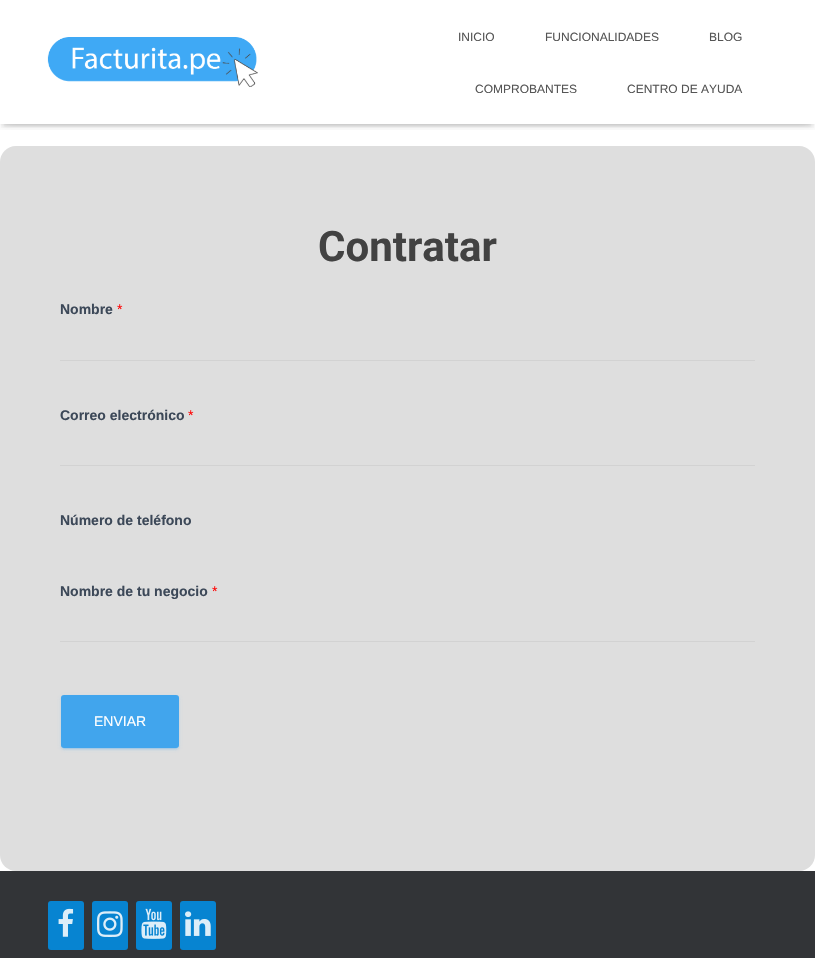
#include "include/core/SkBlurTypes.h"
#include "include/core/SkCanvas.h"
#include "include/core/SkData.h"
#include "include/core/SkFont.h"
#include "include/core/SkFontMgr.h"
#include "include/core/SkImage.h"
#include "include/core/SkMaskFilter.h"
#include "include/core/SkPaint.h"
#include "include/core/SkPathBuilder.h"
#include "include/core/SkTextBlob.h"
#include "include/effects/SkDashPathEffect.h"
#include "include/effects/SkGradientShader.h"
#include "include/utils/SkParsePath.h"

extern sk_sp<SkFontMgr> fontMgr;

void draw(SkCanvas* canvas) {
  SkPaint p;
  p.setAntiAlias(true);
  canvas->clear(SkColorSetRGB(50, 52, 55));
  p.setColor(SK_ColorWHITE);
  canvas->drawRect(SkRect::MakeLTRB(0, 0, 815, 871), p);
  canvas->save();
  canvas->clipRect(SkRect::MakeLTRB(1, 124, 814, 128));
  p.setColor(SkColorSetARGB(26, 0, 0, 0));
  p.setMaskFilter(SkMaskFilter::MakeBlur(kNormal_SkBlurStyle, 2.5f));
  canvas->drawRect(SkRect::MakeLTRB(2, 6, 813, 126), p);
  p.setMaskFilter(nullptr);
  canvas->restore();
  canvas->save();
  canvas->clipRect(SkRect::MakeLTRB(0, 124, 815, 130));
  p.setColor(SkColorSetARGB(31, 0, 0, 0));
  p.setMaskFilter(SkMaskFilter::MakeBlur(kNormal_SkBlurStyle, 5));
  canvas->drawRect(SkRect::MakeLTRB(0, 1, 815, 125), p);
  p.setMaskFilter(nullptr);
  canvas->restore();
  canvas->save();
  canvas->clipRect(SkRect::MakeLTRB(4, 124, 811, 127));
  p.setColor(SkColorSetARGB(107, 0, 0, 0));
  p.setMaskFilter(SkMaskFilter::MakeBlur(kNormal_SkBlurStyle, 5));
  canvas->drawRect(SkRect::MakeLTRB(6, 7, 809, 119), p);
  p.setMaskFilter(nullptr);
  canvas->restore();
  canvas->drawImageRect(SkImages::DeferredFromEncodedData(SkData::MakeFromFileName("images/1.png")), SkRect::MakeLTRB(47, 37, 258, 87), SkSamplingOptions());
  p.setColor(SkColorSetRGB(222, 222, 222));
  canvas->drawRoundRect(SkRect::MakeLTRB(0, 146, 815, 871), 16, 16, p);
  p.setColor(SkColorSetRGB(210, 210, 210));
  canvas->drawRect(SkRect::MakeLTRB(60, 360, 755, 361), p);
  canvas->drawRect(SkRect::MakeLTRB(60, 465, 755, 466), p);
  canvas->drawRect(SkRect::MakeLTRB(60, 641, 755, 642), p);
  p.setColor(SkColorSetARGB(31, 65, 165, 237));
  p.setMaskFilter(SkMaskFilter::MakeBlur(kNormal_SkBlurStyle, 2.5f));
  canvas->drawRoundRect(SkRect::MakeLTRB(61, 696, 179, 749), 3, 3, p);
  p.setMaskFilter(nullptr);
  p.setColor(SkColorSetARGB(51, 65, 165, 237));
  p.setMaskFilter(SkMaskFilter::MakeBlur(kNormal_SkBlurStyle, 0.5f));
  canvas->drawRoundRect(SkRect::MakeLTRB(63, 700, 177, 749), 1, 1, p);
  p.setMaskFilter(nullptr);
  p.setColor(SkColorSetARGB(36, 65, 165, 237));
  p.setMaskFilter(SkMaskFilter::MakeBlur(kNormal_SkBlurStyle, 1));
  canvas->drawRoundRect(SkRect::MakeLTRB(61, 697, 179, 750), 3, 3, p);
  p.setMaskFilter(nullptr);
  p.setColor(SkColorSetRGB(65, 165, 237));
  canvas->drawRoundRect(SkRect::MakeLTRB(61, 695, 179, 748), 3, 3, p);
  p.setColor(SkColorSetRGB(7, 132, 209));
  canvas->drawRoundRect(SkRect::MakeLTRB(48, 901, 84, 950), 3, 3, p);
  canvas->drawImageRect(SkImages::DeferredFromEncodedData(SkData::MakeFromFileName("images/2.png")), SkRect::MakeLTRB(58, 908, 74, 937), SkSamplingOptions());
  canvas->drawRoundRect(SkRect::MakeLTRB(92, 901, 128, 950), 3, 3, p);
  canvas->drawImageRect(SkImages::DeferredFromEncodedData(SkData::MakeFromFileName("images/3.png")), SkRect::MakeLTRB(97, 911, 123, 937), SkSamplingOptions());
  canvas->drawRoundRect(SkRect::MakeLTRB(136, 901, 172, 950), 3, 3, p);
  canvas->drawImageRect(SkImages::DeferredFromEncodedData(SkData::MakeFromFileName("images/4.png")), SkRect::MakeLTRB(141, 908, 167, 939), SkSamplingOptions());
  canvas->drawRoundRect(SkRect::MakeLTRB(180, 901, 216, 950), 3, 3, p);
  canvas->drawImageRect(SkImages::DeferredFromEncodedData(SkData::MakeFromFileName("images/5.png")), SkRect::MakeLTRB(185, 911, 211, 936), SkSamplingOptions());
  SkFont font1(fontMgr->matchFamilyStyle("Liberation Sans", SkFontStyle::Normal()), 12);
  font1.setSubpixel(true);
  p.setColor(SkColorSetRGB(85, 85, 85));
  canvas->drawString("INICIO", 458, 41, font1, p);
  canvas->drawString("FUNCIONALIDADES", 545, 41, font1, p);
  canvas->drawString("BLOG", 709, 41, font1, p);
  canvas->drawString("COMPROBANTES", 475, 93, font1, p);
  canvas->drawString("CENTRO DE AYUDA", 627, 93, font1, p);
  SkFont font2(fontMgr->matchFamilyStyle("Roboto", SkFontStyle::Bold()), 42);
  font2.setSubpixel(true);
  p.setColor(SkColorSetRGB(66, 66, 66));
  canvas->drawString("Contratar", 318, 261, font2, p);
  SkFont font3(fontMgr->matchFamilyStyle("Liberation Sans", SkFontStyle::Bold()), 14);
  font3.setSubpixel(true);
  p.setColor(SkColorSetRGB(60, 72, 88));
  canvas->drawString("Nombre", 60, 314, font3, p);
  SkFont font4(fontMgr->matchFamilyStyle("Liberation Sans", SkFontStyle::Normal()), 14);
  font4.setSubpixel(true);
  p.setColor(SkColorSetRGB(255, 0, 0));
  canvas->drawString("*", 117, 314, font4, p);
  p.setColor(SkColorSetRGB(60, 72, 88));
  canvas->drawString("Correo electrónico", 60, 420, font3, p);
  p.setColor(SkColorSetRGB(255, 0, 0));
  canvas->drawString("*", 188, 420, font4, p);
  p.setColor(SkColorSetRGB(60, 72, 88));
  canvas->drawString("Número de teléfono", 60, 525, font3, p);
  canvas->drawString("Nombre de tu negocio", 60, 596, font3, p);
  p.setColor(SkColorSetRGB(255, 0, 0));
  canvas->drawString("*", 212, 596, font4, p);
  p.setColor(SK_ColorWHITE);
  canvas->drawString("ENVIAR", 94, 726, font4, p);
}
